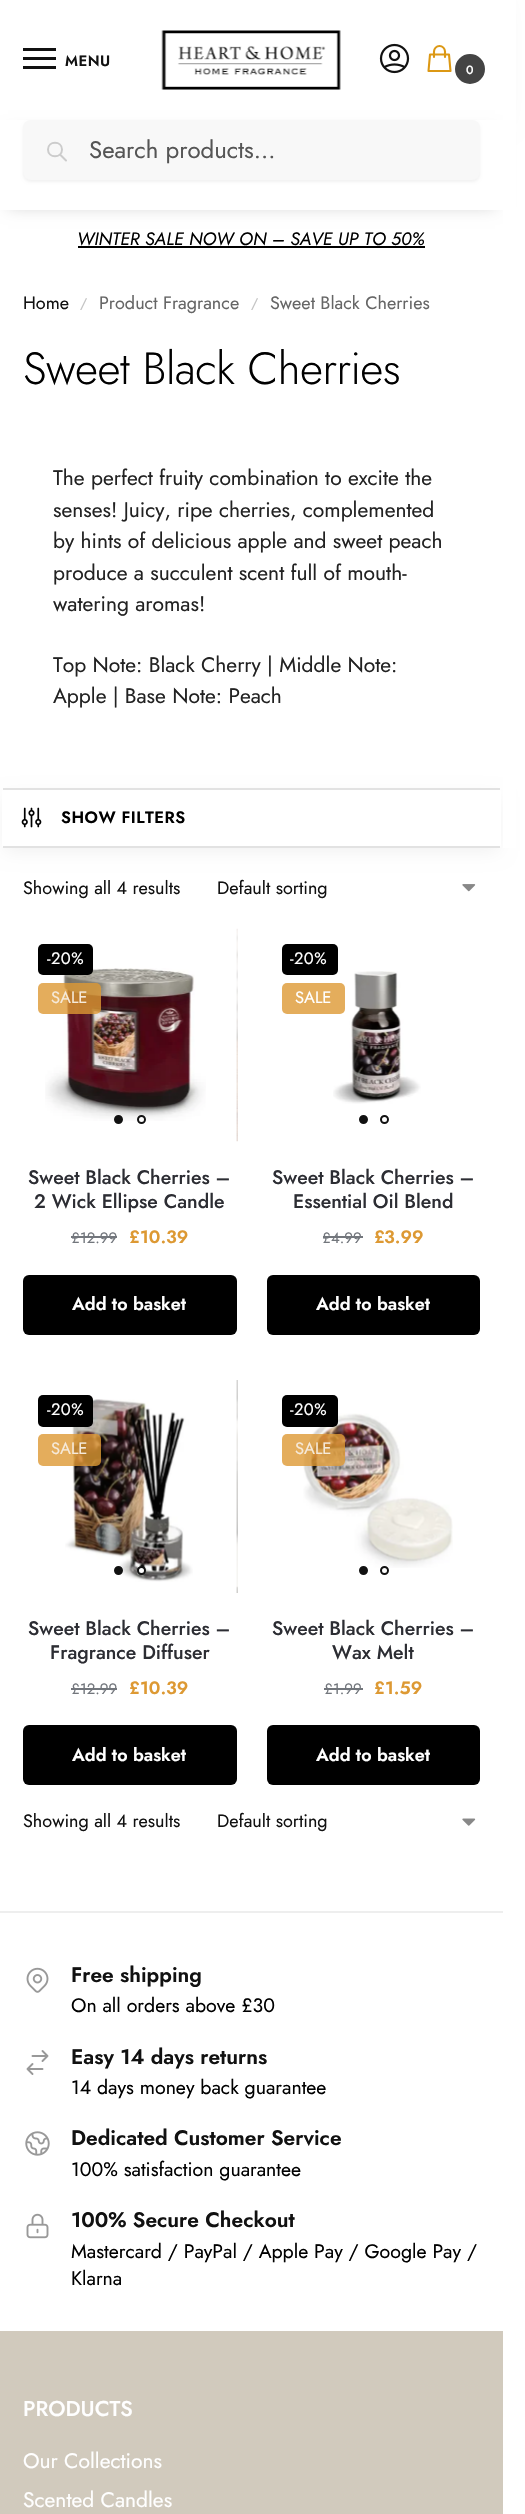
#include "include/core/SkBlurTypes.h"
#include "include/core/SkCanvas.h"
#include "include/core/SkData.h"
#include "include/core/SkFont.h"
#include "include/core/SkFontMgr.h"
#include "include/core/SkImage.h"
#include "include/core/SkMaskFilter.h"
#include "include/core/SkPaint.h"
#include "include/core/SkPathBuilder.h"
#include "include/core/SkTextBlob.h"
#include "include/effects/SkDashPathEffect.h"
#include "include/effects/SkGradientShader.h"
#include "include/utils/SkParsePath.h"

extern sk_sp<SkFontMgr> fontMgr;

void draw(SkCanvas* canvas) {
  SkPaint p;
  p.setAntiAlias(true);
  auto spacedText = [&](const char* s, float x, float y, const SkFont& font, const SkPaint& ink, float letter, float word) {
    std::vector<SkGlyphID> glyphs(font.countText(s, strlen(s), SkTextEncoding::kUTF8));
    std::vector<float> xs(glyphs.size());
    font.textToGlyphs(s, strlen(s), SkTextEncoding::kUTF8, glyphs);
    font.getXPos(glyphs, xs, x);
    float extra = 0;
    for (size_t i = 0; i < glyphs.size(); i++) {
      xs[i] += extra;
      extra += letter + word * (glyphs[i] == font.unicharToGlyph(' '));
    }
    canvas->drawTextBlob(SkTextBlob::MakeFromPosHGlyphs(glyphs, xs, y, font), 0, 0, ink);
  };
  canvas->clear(SK_ColorWHITE);
  canvas->save();
  canvas->clipPath(SkPathBuilder(SkPathFillType::kEvenOdd).moveTo(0, 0).lineTo(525, 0).lineTo(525, 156).lineTo(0, 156).close().moveTo(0, 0).lineTo(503, 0).lineTo(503, 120).lineTo(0, 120).close().detach(), true);
  p.setColor(SkColorSetARGB(20, 0, 0, 0));
  p.setMaskFilter(SkMaskFilter::MakeBlur(kNormal_SkBlurStyle, 11));
  canvas->drawRect(SkRect::MakeLTRB(0, 2, 503, 122), p);
  p.setMaskFilter(nullptr);
  canvas->restore();
  p.setColor(SkColorSetRGB(17, 17, 17));
  canvas->drawRect(SkRect::MakeLTRB(23, 48, 56, 51), p);
  canvas->drawRect(SkRect::MakeLTRB(23, 57, 56, 60), p);
  canvas->drawRect(SkRect::MakeLTRB(23, 66, 56, 69), p);
  canvas->drawImageRect(SkImages::DeferredFromEncodedData(SkData::MakeFromFileName("images/1.png")), SkRect::MakeLTRB(161, 30, 341, 90), SkSamplingOptions());
  canvas->drawImageRect(SkImages::DeferredFromEncodedData(SkData::MakeFromFileName("images/2.png")), SkRect::MakeLTRB(379, 43, 410, 74), SkSamplingOptions());
  p.setStyle(SkPaint::kStroke_Style);
  p.setStrokeWidth(2.1f);
  p.setStrokeCap(SkPaint::kRound_Cap);
  p.setStrokeJoin(SkPaint::kRound_Join);
  p.setColor(SkColorSetRGB(220, 152, 20));
  canvas->drawPath(SkPathBuilder().moveTo(445, 57).lineTo(445, 51.5f).cubicTo(445, 48.5f, 442.5f, 46, 439.5f, 46).cubicTo(436.5f, 46, 434, 48.5f, 434, 51.5f).lineTo(434, 57).moveTo(430, 54.5f).lineTo(449, 54.5f).lineTo(450.5f, 71).lineTo(428.5f, 71).close().detach(), p);
  p.setStyle(SkPaint::kFill_Style);
  p.setColor(SkColorSetRGB(68, 68, 68));
  canvas->drawCircle(470, 69, 14, p);
  p.setStyle(SkPaint::kStroke_Style);
  p.setStrokeWidth(2);
  p.setStrokeCap(SkPaint::kButt_Cap);
  p.setStrokeJoin(SkPaint::kMiter_Join);
  canvas->drawCircle(470, 69, 14, p);
  p.setStyle(SkPaint::kFill_Style);
  p.setColor(SkColorSetARGB(46, 0, 0, 0));
  p.setMaskFilter(SkMaskFilter::MakeBlur(kNormal_SkBlurStyle, 7.5f));
  canvas->drawRect(SkRect::MakeLTRB(8, 132, 495, 207), p);
  p.setMaskFilter(nullptr);
  p.setColor(SK_ColorWHITE);
  canvas->drawRect(SkRect::MakeLTRB(0, 120, 503, 210), p);
  p.setColor(SkColorSetARGB(13, 0, 0, 0));
  p.setMaskFilter(SkMaskFilter::MakeBlur(kNormal_SkBlurStyle, 1.5f));
  canvas->drawRoundRect(SkRect::MakeLTRB(23, 122, 480, 182), 8, 8, p);
  p.setMaskFilter(nullptr);
  p.setColor(SkColorSetRGB(248, 248, 248));
  canvas->drawRoundRect(SkRect::MakeLTRB(23, 120, 480, 180), 8, 8, p);
  p.setStyle(SkPaint::kStroke_Style);
  p.setStrokeCap(SkPaint::kRound_Cap);
  p.setStrokeJoin(SkPaint::kRound_Join);
  p.setColor(SkColorSetRGB(204, 204, 204));
  canvas->drawPath(SkPathBuilder().moveTo(66, 160.5f).lineTo(60, 154.5f).moveTo(62, 149.5f).cubicTo(62, 158.5f, 48, 158.5f, 48, 149.5f).cubicTo(48, 140.5f, 62, 140.5f, 62, 149.5f).close().detach(), p);
  p.setStyle(SkPaint::kFill_Style);
  p.setColor(SkColorSetARGB(15, 0, 0, 0));
  p.setMaskFilter(SkMaskFilter::MakeBlur(kNormal_SkBlurStyle, 9));
  canvas->drawRect(SkRect::MakeLTRB(5, 797, 498, 851), p);
  p.setMaskFilter(nullptr);
  p.setColor(SK_ColorWHITE);
  canvas->drawRect(SkRect::MakeLTRB(503, 0, 516, 848), p);
  p.setColor(SK_ColorBLACK);
  canvas->drawRect(SkRect::MakeLTRB(78, 246, 425, 248), p);
  p.setColor(SK_ColorWHITE);
  canvas->drawRoundRect(SkRect::MakeLTRB(2, 788, 501, 848), 3, 3, p);
  p.setColor(SkColorSetRGB(226, 226, 226));
  canvas->drawRect(SkRect::MakeLTRB(3, 788, 500, 790), p);
  canvas->drawRect(SkRect::MakeLTRB(3, 846, 500, 848), p);
  canvas->drawImageRect(SkImages::DeferredFromEncodedData(SkData::MakeFromFileName("images/3.png")), SkRect::MakeLTRB(21, 807, 42, 828), SkSamplingOptions());
  canvas->drawImageRect(SkImages::DeferredFromEncodedData(SkData::MakeFromFileName("images/4.png")), SkRect::MakeLTRB(462, 884, 476, 892), SkSamplingOptions());
  canvas->drawImageRect(SkImages::DeferredFromEncodedData(SkData::MakeFromFileName("images/5.png")), SkRect::MakeLTRB(45, 968, 206, 1121), SkSamplingOptions());
  canvas->drawImageRect(SkImages::DeferredFromEncodedData(SkData::MakeFromFileName("images/6.png")), SkRect::MakeLTRB(236, 928, 238, 1142), SkSamplingOptions());
  p.setColor(SK_ColorBLACK);
  canvas->drawRoundRect(SkRect::MakeLTRB(38, 944, 93, 975), 5, 5, p);
  p.setColor(SkColorSetARGB(204, 221, 153, 51));
  canvas->drawRoundRect(SkRect::MakeLTRB(38, 983, 101, 1014), 5, 5, p);
  p.setColor(SkColorSetRGB(17, 17, 17));
  canvas->drawCircle(118.5f, 1119.5f, 3.5f, p);
  p.setStyle(SkPaint::kStroke_Style);
  p.setStrokeCap(SkPaint::kButt_Cap);
  p.setStrokeJoin(SkPaint::kMiter_Join);
  canvas->drawCircle(118.5f, 1119.5f, 3.5f, p);
  p.setStyle(SkPaint::kFill_Style);
  p.setColor(SK_ColorWHITE);
  canvas->drawCircle(141.5f, 1119.5f, 3.5f, p);
  p.setStyle(SkPaint::kStroke_Style);
  p.setColor(SkColorSetRGB(17, 17, 17));
  canvas->drawCircle(141.5f, 1119.5f, 3.5f, p);
  p.setStyle(SkPaint::kFill_Style);
  p.setColor(SkColorSetRGB(114, 118, 124));
  canvas->drawRect(SkRect::MakeLTRB(71, 1236, 80, 1238), p);
  canvas->drawRect(SkRect::MakeLTRB(80, 1236, 117, 1238), p);
  p.setColor(SK_ColorBLACK);
  canvas->drawRoundRect(SkRect::MakeLTRB(23, 1275, 237, 1335), 6, 6, p);
  canvas->drawImageRect(SkImages::DeferredFromEncodedData(SkData::MakeFromFileName("images/7.png")), SkRect::MakeLTRB(333, 971, 421, 1104), SkSamplingOptions());
  canvas->drawRoundRect(SkRect::MakeLTRB(282, 944, 338, 975), 5, 5, p);
  p.setColor(SkColorSetRGB(228, 173, 92));
  canvas->drawRoundRect(SkRect::MakeLTRB(282, 983, 345, 1014), 5, 5, p);
  p.setColor(SkColorSetRGB(17, 17, 17));
  canvas->drawCircle(363.5f, 1119.5f, 3.5f, p);
  p.setStyle(SkPaint::kStroke_Style);
  canvas->drawCircle(363.5f, 1119.5f, 3.5f, p);
  canvas->drawCircle(384.5f, 1119.5f, 3.5f, p);
  p.setStyle(SkPaint::kFill_Style);
  p.setColor(SkColorSetRGB(114, 118, 124));
  canvas->drawRect(SkRect::MakeLTRB(323, 1236, 332, 1238), p);
  canvas->drawRect(SkRect::MakeLTRB(332, 1236, 363, 1238), p);
  p.setColor(SK_ColorBLACK);
  canvas->drawRoundRect(SkRect::MakeLTRB(267, 1275, 480, 1335), 6, 6, p);
  canvas->drawImageRect(SkImages::DeferredFromEncodedData(SkData::MakeFromFileName("images/8.png")), SkRect::MakeLTRB(65, 1399, 193, 1582), SkSamplingOptions());
  canvas->drawRoundRect(SkRect::MakeLTRB(38, 1395, 93, 1427), 5, 5, p);
  canvas->drawImageRect(SkImages::DeferredFromEncodedData(SkData::MakeFromFileName("images/9.png")), SkRect::MakeLTRB(236, 1380, 238, 1593), SkSamplingOptions());
  p.setColor(SkColorSetARGB(204, 221, 153, 51));
  canvas->drawRoundRect(SkRect::MakeLTRB(38, 1434, 101, 1466), 5, 5, p);
  p.setColor(SkColorSetRGB(17, 17, 17));
  canvas->drawCircle(118.5f, 1570.5f, 3.5f, p);
  p.setStyle(SkPaint::kStroke_Style);
  canvas->drawCircle(118.5f, 1570.5f, 3.5f, p);
  p.setStyle(SkPaint::kFill_Style);
  p.setColor(SK_ColorWHITE);
  canvas->drawCircle(141.5f, 1570.5f, 3.5f, p);
  p.setStyle(SkPaint::kStroke_Style);
  p.setColor(SkColorSetRGB(17, 17, 17));
  canvas->drawCircle(141.5f, 1570.5f, 3.5f, p);
  p.setStyle(SkPaint::kFill_Style);
  p.setColor(SkColorSetRGB(114, 118, 124));
  canvas->drawRect(SkRect::MakeLTRB(80, 1688, 117, 1690), p);
  canvas->drawRect(SkRect::MakeLTRB(71, 1688, 80, 1690), p);
  p.setColor(SK_ColorBLACK);
  canvas->drawRoundRect(SkRect::MakeLTRB(23, 1725, 237, 1785), 6, 6, p);
  canvas->drawImageRect(SkImages::DeferredFromEncodedData(SkData::MakeFromFileName("images/10.png")), SkRect::MakeLTRB(303, 1413, 453, 1568), SkSamplingOptions());
  canvas->drawRoundRect(SkRect::MakeLTRB(282, 1395, 338, 1427), 5, 5, p);
  p.setColor(SkColorSetARGB(204, 221, 153, 51));
  canvas->drawRoundRect(SkRect::MakeLTRB(282, 1434, 345, 1466), 5, 5, p);
  p.setColor(SkColorSetRGB(17, 17, 17));
  canvas->drawCircle(363.5f, 1570.5f, 3.5f, p);
  p.setStyle(SkPaint::kStroke_Style);
  canvas->drawCircle(363.5f, 1570.5f, 3.5f, p);
  p.setStyle(SkPaint::kFill_Style);
  p.setColor(SK_ColorWHITE);
  canvas->drawCircle(384.5f, 1570.5f, 3.5f, p);
  p.setStyle(SkPaint::kStroke_Style);
  p.setColor(SkColorSetRGB(17, 17, 17));
  canvas->drawCircle(384.5f, 1570.5f, 3.5f, p);
  p.setStyle(SkPaint::kFill_Style);
  p.setColor(SkColorSetRGB(114, 118, 124));
  canvas->drawRect(SkRect::MakeLTRB(333, 1688, 363, 1690), p);
  canvas->drawRect(SkRect::MakeLTRB(324, 1688, 333, 1690), p);
  p.setColor(SK_ColorBLACK);
  canvas->drawRoundRect(SkRect::MakeLTRB(267, 1725, 480, 1785), 6, 6, p);
  canvas->drawImageRect(SkImages::DeferredFromEncodedData(SkData::MakeFromFileName("images/11.png")), SkRect::MakeLTRB(462, 1818, 476, 1826), SkSamplingOptions());
  p.setColor(SkColorSetRGB(238, 238, 238));
  canvas->drawRect(SkRect::MakeLTRB(0, 1911, 503, 1913), p);
  canvas->drawImageRect(SkImages::DeferredFromEncodedData(SkData::MakeFromFileName("images/12.png")), SkRect::MakeLTRB(26, 1967, 49, 1993), SkSamplingOptions());
  p.setStyle(SkPaint::kStroke_Style);
  p.setStrokeWidth(1.9f);
  p.setStrokeCap(SkPaint::kRound_Cap);
  p.setStrokeJoin(SkPaint::kRound_Join);
  p.setColor(SkColorSetRGB(153, 153, 153));
  canvas->drawPath(SkPathBuilder().moveTo(32.5f, 2056).lineTo(47.5f, 2056).moveTo(47.5f, 2056).lineTo(42.5f, 2051).moveTo(47.5f, 2056).lineTo(42.5f, 2061).moveTo(42.5f, 2069).lineTo(27.5f, 2069).moveTo(27.5f, 2069).lineTo(32.5f, 2074).moveTo(27.5f, 2069).lineTo(32.5f, 2064).detach(), p);
  canvas->drawImageRect(SkImages::DeferredFromEncodedData(SkData::MakeFromFileName("images/13.png")), SkRect::MakeLTRB(25, 2131, 50, 2156), SkSamplingOptions());
  canvas->drawImageRect(SkImages::DeferredFromEncodedData(SkData::MakeFromFileName("images/14.png")), SkRect::MakeLTRB(26, 2213, 49, 2239), SkSamplingOptions());
  p.setStyle(SkPaint::kFill_Style);
  p.setColor(SkColorSetRGB(209, 202, 189));
  canvas->drawRect(SkRect::MakeLTRB(0, 2331, 503, 2514), p);
  SkFont font1(fontMgr->matchFamilyStyle("Jost", SkFontStyle(600, SkFontStyle::kNormal_Width, SkFontStyle::kUpright_Slant)), 15);
  font1.setSubpixel(true);
  p.setColor(SkColorSetRGB(17, 17, 17));
  spacedText("MENU", 65, 66, font1, p, 0.5f, 0);
  SkFont font2(fontMgr->matchFamilyStyle("Jost", SkFontStyle(500, SkFontStyle::kNormal_Width, SkFontStyle::kUpright_Slant)), 12);
  font2.setSubpixel(true);
  p.setColor(SK_ColorWHITE);
  canvas->drawString("0", 466, 74, font2, p);
  SkFont font3(fontMgr->matchFamilyStyle("Jost", SkFontStyle::Normal()), 24);
  font3.setSubpixel(true);
  p.setColor(SkColorSetRGB(85, 85, 85));
  canvas->drawString("Search products...", 89, 158, font3, p);
  SkFont font4(fontMgr->matchFamilyStyle("Jost", SkFontStyle::Italic()), 18);
  font4.setSubpixel(true);
  p.setColor(SK_ColorBLACK);
  canvas->drawString("WINTER SALE NOW ON – SAVE UP TO 50%", 77, 245, font4, p);
  SkFont font5(fontMgr->matchFamilyStyle("Jost", SkFontStyle::Normal()), 18);
  font5.setSubpixel(true);
  p.setColor(SkColorSetRGB(17, 17, 17));
  canvas->drawString("Home", 23, 309, font5, p);
  SkFont font6(fontMgr->matchFamilyStyle("Jost", SkFontStyle::Normal()), 14);
  font6.setSubpixel(true);
  p.setColor(SkColorSetRGB(194, 194, 194));
  canvas->drawString("/", 80, 308, font6, p);
  p.setColor(SkColorSetRGB(102, 102, 102));
  canvas->drawString("Product Fragrance", 99, 309, font5, p);
  p.setColor(SkColorSetRGB(194, 194, 194));
  canvas->drawString("/", 251, 308, font6, p);
  p.setColor(SkColorSetRGB(102, 102, 102));
  canvas->drawString("Sweet Black Cherries", 270, 309, font5, p);
  SkFont font7(fontMgr->matchFamilyStyle("Jost", SkFontStyle(300, SkFontStyle::kNormal_Width, SkFontStyle::kUpright_Slant)), 45);
  font7.setSubpixel(true);
  p.setColor(SK_ColorBLACK);
  spacedText("Sweet Black Cherries", 23, 384, font7, p, -0.5f, 0);
  SkFont font8(fontMgr->matchFamilyStyle("Jost", SkFontStyle::Normal()), 21);
  font8.setSubpixel(true);
  p.setColor(SkColorSetRGB(34, 34, 34));
  canvas->drawString("The perfect fruity combination to excite the", 53, 485, font8, p);
  canvas->drawString("senses! Juicy, ripe cherries, complemented", 53, 517, font8, p);
  canvas->drawString("by hints of delicious apple and sweet peach", 53, 548, font8, p);
  canvas->drawString("produce a succulent scent full of mouth-", 53, 580, font8, p);
  canvas->drawString("watering aromas!", 53, 611, font8, p);
  canvas->drawString("Top Note: Black Cherry | Middle Note:", 53, 672, font8, p);
  canvas->drawString("Apple | Base Note: Peach", 53, 703, font8, p);
  SkFont font9(fontMgr->matchFamilyStyle("Jost", SkFontStyle(600, SkFontStyle::kNormal_Width, SkFontStyle::kUpright_Slant)), 16.5f);
  font9.setSubpixel(true);
  p.setColor(SK_ColorBLACK);
  spacedText("SHOW FILTERS", 61, 823, font9, p, 0.5f, 0);
  p.setColor(SkColorSetRGB(17, 17, 17));
  canvas->drawString("Showing all 4 results", 23, 894, font5, p);
  canvas->drawString("Default sorting", 217, 894, font5, p);
  SkFont font10(fontMgr->matchFamilyStyle("Jost", SkFontStyle::Normal()), 16.5f);
  font10.setSubpixel(true);
  p.setColor(SK_ColorWHITE);
  spacedText("-20%", 47, 964, font10, p, 0.5f, 0);
  p.setColor(SkColorSetRGB(246, 234, 218));
  canvas->drawString("SALE", 51, 1003, font10, p);
  SkFont font11(fontMgr->matchFamilyStyle("Jost", SkFontStyle(500, SkFontStyle::kNormal_Width, SkFontStyle::kUpright_Slant)), 19.5f);
  font11.setSubpixel(true);
  p.setColor(SkColorSetRGB(44, 45, 51));
  canvas->drawString("Sweet Black Cherries –", 28, 1184, font11, p);
  canvas->drawString("2 Wick Ellipse Candle", 34, 1208, font11, p);
  SkFont font12(fontMgr->matchFamilyStyle("Jost", SkFontStyle::Normal()), 15);
  font12.setSubpixel(true);
  p.setColor(SkColorSetRGB(114, 118, 124));
  canvas->drawString("£", 71, 1243, font12, p);
  canvas->drawString("12.99", 80, 1243, font12, p);
  SkFont font13(fontMgr->matchFamilyStyle("Jost", SkFontStyle(600, SkFontStyle::kNormal_Width, SkFontStyle::kUpright_Slant)), 18);
  font13.setSubpixel(true);
  p.setColor(SkColorSetRGB(221, 153, 51));
  canvas->drawString("£", 129, 1243, font13, p);
  canvas->drawString("10.39", 140, 1243, font13, p);
  p.setColor(SK_ColorWHITE);
  canvas->drawString("Add to basket", 72, 1310, font13, p);
  spacedText("-20%", 290, 964, font10, p, 0.5f, 0);
  canvas->drawString("SALE", 295, 1003, font10, p);
  p.setColor(SkColorSetRGB(44, 45, 51));
  canvas->drawString("Sweet Black Cherries –", 272, 1184, font11, p);
  canvas->drawString("Essential Oil Blend", 293, 1208, font11, p);
  p.setColor(SkColorSetRGB(114, 118, 124));
  canvas->drawString("£", 322, 1243, font12, p);
  canvas->drawString("4.99", 331, 1243, font12, p);
  p.setColor(SkColorSetRGB(221, 153, 51));
  canvas->drawString("£", 374, 1243, font13, p);
  canvas->drawString("3.99", 384, 1243, font13, p);
  p.setColor(SK_ColorWHITE);
  canvas->drawString("Add to basket", 316, 1310, font13, p);
  spacedText("-20%", 47, 1415, font10, p, 0.5f, 0);
  p.setColor(SkColorSetRGB(246, 234, 218));
  canvas->drawString("SALE", 51, 1454, font10, p);
  p.setColor(SkColorSetRGB(44, 45, 51));
  canvas->drawString("Sweet Black Cherries –", 28, 1635, font11, p);
  canvas->drawString("Fragrance Diffuser", 50, 1659, font11, p);
  p.setColor(SkColorSetRGB(114, 118, 124));
  canvas->drawString("£", 71, 1694, font12, p);
  canvas->drawString("12.99", 80, 1694, font12, p);
  p.setColor(SkColorSetRGB(221, 153, 51));
  canvas->drawString("£", 129, 1694, font13, p);
  canvas->drawString("10.39", 140, 1694, font13, p);
  p.setColor(SK_ColorWHITE);
  canvas->drawString("Add to basket", 72, 1761, font13, p);
  spacedText("-20%", 290, 1415, font10, p, 0.5f, 0);
  p.setColor(SkColorSetRGB(246, 234, 218));
  canvas->drawString("SALE", 295, 1454, font10, p);
  p.setColor(SkColorSetRGB(44, 45, 51));
  canvas->drawString("Sweet Black Cherries –", 272, 1635, font11, p);
  canvas->drawString("Wax Melt", 332, 1659, font11, p);
  p.setColor(SkColorSetRGB(114, 118, 124));
  canvas->drawString("£", 324, 1694, font12, p);
  canvas->drawString("1.99", 333, 1694, font12, p);
  p.setColor(SkColorSetRGB(221, 153, 51));
  canvas->drawString("£", 374, 1694, font13, p);
  canvas->drawString("1.59", 385, 1694, font13, p);
  p.setColor(SK_ColorWHITE);
  canvas->drawString("Add to basket", 316, 1761, font13, p);
  p.setColor(SkColorSetRGB(17, 17, 17));
  canvas->drawString("Showing all 4 results", 23, 1827, font5, p);
  canvas->drawString("Default sorting", 217, 1827, font5, p);
  SkFont font14(fontMgr->matchFamilyStyle("Jost", SkFontStyle(600, SkFontStyle::kNormal_Width, SkFontStyle::kUpright_Slant)), 21);
  font14.setSubpixel(true);
  canvas->drawString("Free shipping", 71, 1982, font14, p);
  SkFont font15(fontMgr->matchFamilyStyle("Jost", SkFontStyle::Normal()), 19.5f);
  font15.setSubpixel(true);
  p.setColor(SK_ColorBLACK);
  canvas->drawString("On all orders above £30", 71, 2012, font15, p);
  p.setColor(SkColorSetRGB(17, 17, 17));
  canvas->drawString("Easy 14 days returns", 71, 2064, font14, p);
  p.setColor(SK_ColorBLACK);
  canvas->drawString("14 days money back guarantee", 71, 2094, font15, p);
  p.setColor(SkColorSetRGB(17, 17, 17));
  canvas->drawString("Dedicated Customer Service", 71, 2145, font14, p);
  p.setColor(SK_ColorBLACK);
  canvas->drawString("100% satisfaction guarantee", 71, 2176, font15, p);
  p.setColor(SkColorSetRGB(17, 17, 17));
  canvas->drawString("100% Secure Checkout", 71, 2227, font14, p);
  p.setColor(SK_ColorBLACK);
  canvas->drawString("Mastercard / PayPal / Apple Pay / Google Pay /", 71, 2258, font15, p);
  canvas->drawString("Klarna", 71, 2285, font15, p);
  SkFont font16(fontMgr->matchFamilyStyle("Jost", SkFontStyle(500, SkFontStyle::kNormal_Width, SkFontStyle::kUpright_Slant)), 21.5f);
  font16.setSubpixel(true);
  p.setColor(SK_ColorWHITE);
  canvas->drawString("PRODUCTS", 23, 2416, font16, p);
  canvas->drawString("Our Collections", 23, 2468, font8, p);
  canvas->drawString("Scented Candles", 23, 2507, font8, p);
}
